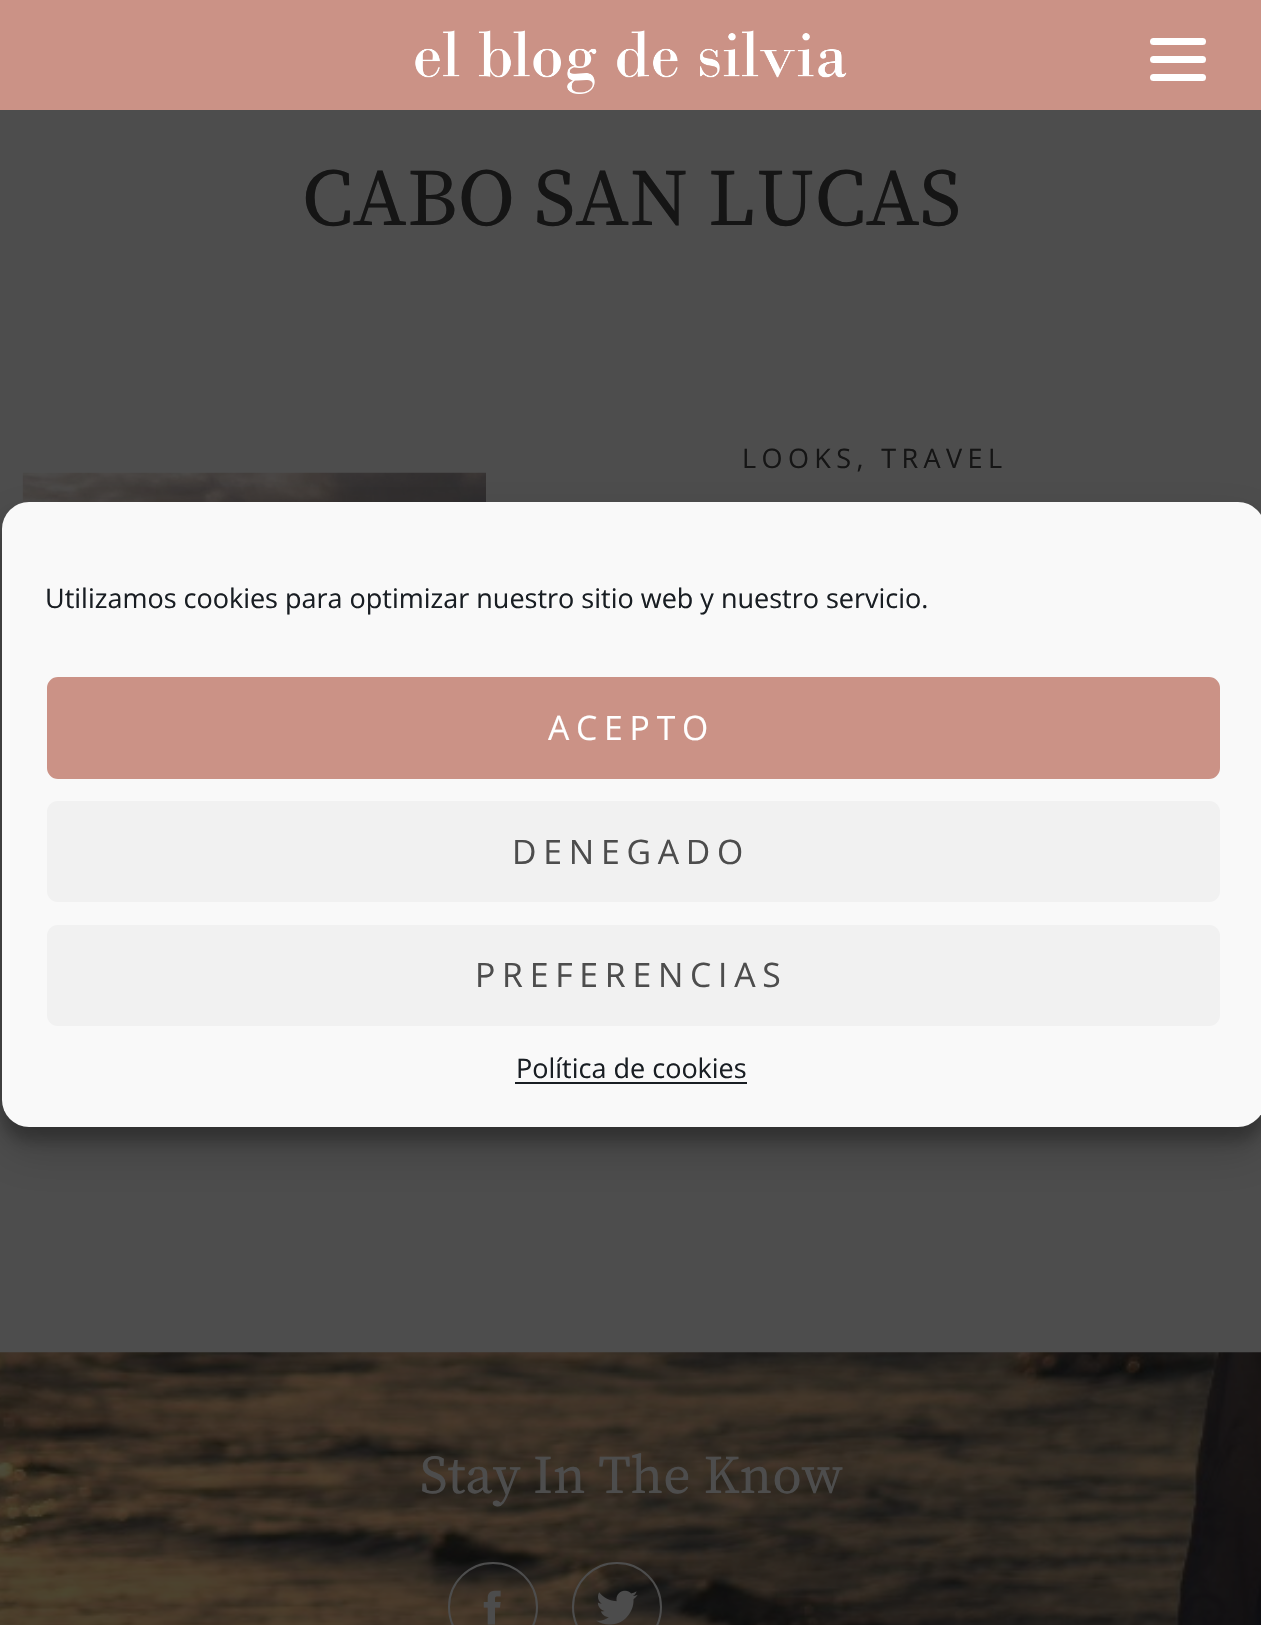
#include "include/core/SkBlurTypes.h"
#include "include/core/SkCanvas.h"
#include "include/core/SkData.h"
#include "include/core/SkFont.h"
#include "include/core/SkFontMgr.h"
#include "include/core/SkImage.h"
#include "include/core/SkMaskFilter.h"
#include "include/core/SkPaint.h"
#include "include/core/SkPathBuilder.h"
#include "include/core/SkTextBlob.h"
#include "include/effects/SkDashPathEffect.h"
#include "include/effects/SkGradientShader.h"
#include "include/utils/SkParsePath.h"

extern sk_sp<SkFontMgr> fontMgr;

void draw(SkCanvas* canvas) {
  SkPaint p;
  p.setAntiAlias(true);
  auto spacedText = [&](const char* s, float x, float y, const SkFont& font, const SkPaint& ink, float letter, float word) {
    std::vector<SkGlyphID> glyphs(font.countText(s, strlen(s), SkTextEncoding::kUTF8));
    std::vector<float> xs(glyphs.size());
    font.textToGlyphs(s, strlen(s), SkTextEncoding::kUTF8, glyphs);
    font.getXPos(glyphs, xs, x);
    float extra = 0;
    for (size_t i = 0; i < glyphs.size(); i++) {
      xs[i] += extra;
      extra += letter + word * (glyphs[i] == font.unicharToGlyph(' '));
    }
    canvas->drawTextBlob(SkTextBlob::MakeFromPosHGlyphs(glyphs, xs, y, font), 0, 0, ink);
  };
  canvas->clear(SkColorSetRGB(77, 77, 77));
  p.setColor(SkColorSetRGB(203, 146, 134));
  canvas->drawRect(SkRect::MakeLTRB(0, 0, 1261, 110), p);
  p.setColor(SK_ColorWHITE);
  canvas->drawRoundRect(SkRect::MakeLTRB(1150, 56, 1206, 63), 3.5f, 3.5f, p);
  canvas->drawRoundRect(SkRect::MakeLTRB(1150, 38, 1206, 45), 3.5f, 3.5f, p);
  canvas->drawRoundRect(SkRect::MakeLTRB(1150, 74, 1206, 81), 3.5f, 3.5f, p);
  canvas->drawImageRect(SkImages::DeferredFromEncodedData(SkData::MakeFromFileName("images/1.png")), SkRect::MakeLTRB(415, 30, 847, 94), SkSamplingOptions());
  canvas->drawImageRect(SkImages::DeferredFromEncodedData(SkData::MakeFromFileName("images/2.png")), SkRect::MakeLTRB(22, 472, 486, 503), SkSamplingOptions());
  p.setColor(SkColorSetARGB(59, 0, 0, 0));
  p.setMaskFilter(SkMaskFilter::MakeBlur(kNormal_SkBlurStyle, 7));
  canvas->drawRoundRect(SkRect::MakeLTRB(2, 515, 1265, 1141), 27, 27, p);
  p.setMaskFilter(nullptr);
  p.setColor(SkColorSetARGB(48, 0, 0, 0));
  p.setMaskFilter(SkMaskFilter::MakeBlur(kNormal_SkBlurStyle, 22.5f));
  canvas->drawRoundRect(SkRect::MakeLTRB(2, 524, 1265, 1150), 27, 27, p);
  p.setMaskFilter(nullptr);
  p.setColor(SkColorSetRGB(249, 249, 249));
  canvas->drawRoundRect(SkRect::MakeLTRB(2, 502, 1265, 1127), 27, 27, p);
  p.setColor(SkColorSetRGB(203, 146, 134));
  canvas->drawRoundRect(SkRect::MakeLTRB(48, 678, 1219, 778), 10, 10, p);
  p.setStyle(SkPaint::kStroke_Style);
  p.setStrokeWidth(2);
  canvas->drawRoundRect(SkRect::MakeLTRB(48, 678, 1219, 778), 10, 10, p);
  p.setStyle(SkPaint::kFill_Style);
  p.setColor(SkColorSetRGB(241, 241, 241));
  canvas->drawRoundRect(SkRect::MakeLTRB(47, 801, 1220, 902), 11, 11, p);
  canvas->drawRoundRect(SkRect::MakeLTRB(47, 925, 1220, 1026), 11, 11, p);
  p.setColor(SkColorSetRGB(25, 30, 35));
  canvas->drawRect(SkRect::MakeLTRB(515, 1082, 747, 1084), p);
  canvas->drawImageRect(SkImages::DeferredFromEncodedData(SkData::MakeFromFileName("images/3.png")), SkRect::MakeLTRB(0, 1352, 1261, 1625), SkSamplingOptions());
  p.setStyle(SkPaint::kStroke_Style);
  p.setColor(SkColorSetRGB(77, 77, 77));
  canvas->drawCircle(493, 1607, 44, p);
  canvas->drawImageRect(SkImages::DeferredFromEncodedData(SkData::MakeFromFileName("images/4.png")), SkRect::MakeLTRB(483, 1590, 501, 1625), SkSamplingOptions());
  canvas->drawCircle(617, 1607, 44, p);
  canvas->drawImageRect(SkImages::DeferredFromEncodedData(SkData::MakeFromFileName("images/5.png")), SkRect::MakeLTRB(596, 1590, 638, 1625), SkSamplingOptions());
  SkFont font1(fontMgr->matchFamilyStyle("Source Serif Pro", SkFontStyle::Normal()), 81);
  font1.setSubpixel(true);
  p.setStyle(SkPaint::kFill_Style);
  p.setColor(SkColorSetRGB(21, 21, 21));
  canvas->drawString("CABO SAN LUCAS", 302, 225, font1, p);
  SkFont font2(fontMgr->matchFamilyStyle("Open Sans", SkFontStyle::Normal()), 27);
  font2.setSubpixel(true);
  spacedText("LOOKS, TRAVEL", 742, 468, font2, p, 5.4f, 0);
  p.setColor(SkColorSetRGB(25, 30, 35));
  canvas->drawString("Utilizamos cookies para optimizar nuestro sitio web y nuestro servicio.", 45, 608, font2, p);
  SkFont font3(fontMgr->matchFamilyStyle("Open Sans", SkFontStyle::Normal()), 33.75f);
  font3.setSubpixel(true);
  p.setColor(SK_ColorWHITE);
  spacedText("ACEPTO", 548, 740, font3, p, 6.75f, 0);
  p.setColor(SkColorSetRGB(77, 77, 77));
  spacedText("DENEGADO", 512, 864, font3, p, 6.75f, 0);
  spacedText("PREFERENCIAS", 475, 987, font3, p, 6.75f, 0);
  p.setColor(SkColorSetRGB(25, 30, 35));
  canvas->drawString("Política de cookies", 516, 1078, font2, p);
  SkFont font4(fontMgr->matchFamilyStyle("Source Serif Pro", SkFontStyle::Normal()), 54);
  font4.setSubpixel(true);
  p.setColor(SkColorSetRGB(77, 77, 77));
  canvas->drawString("Stay In The Know", 420, 1493, font4, p);
}
